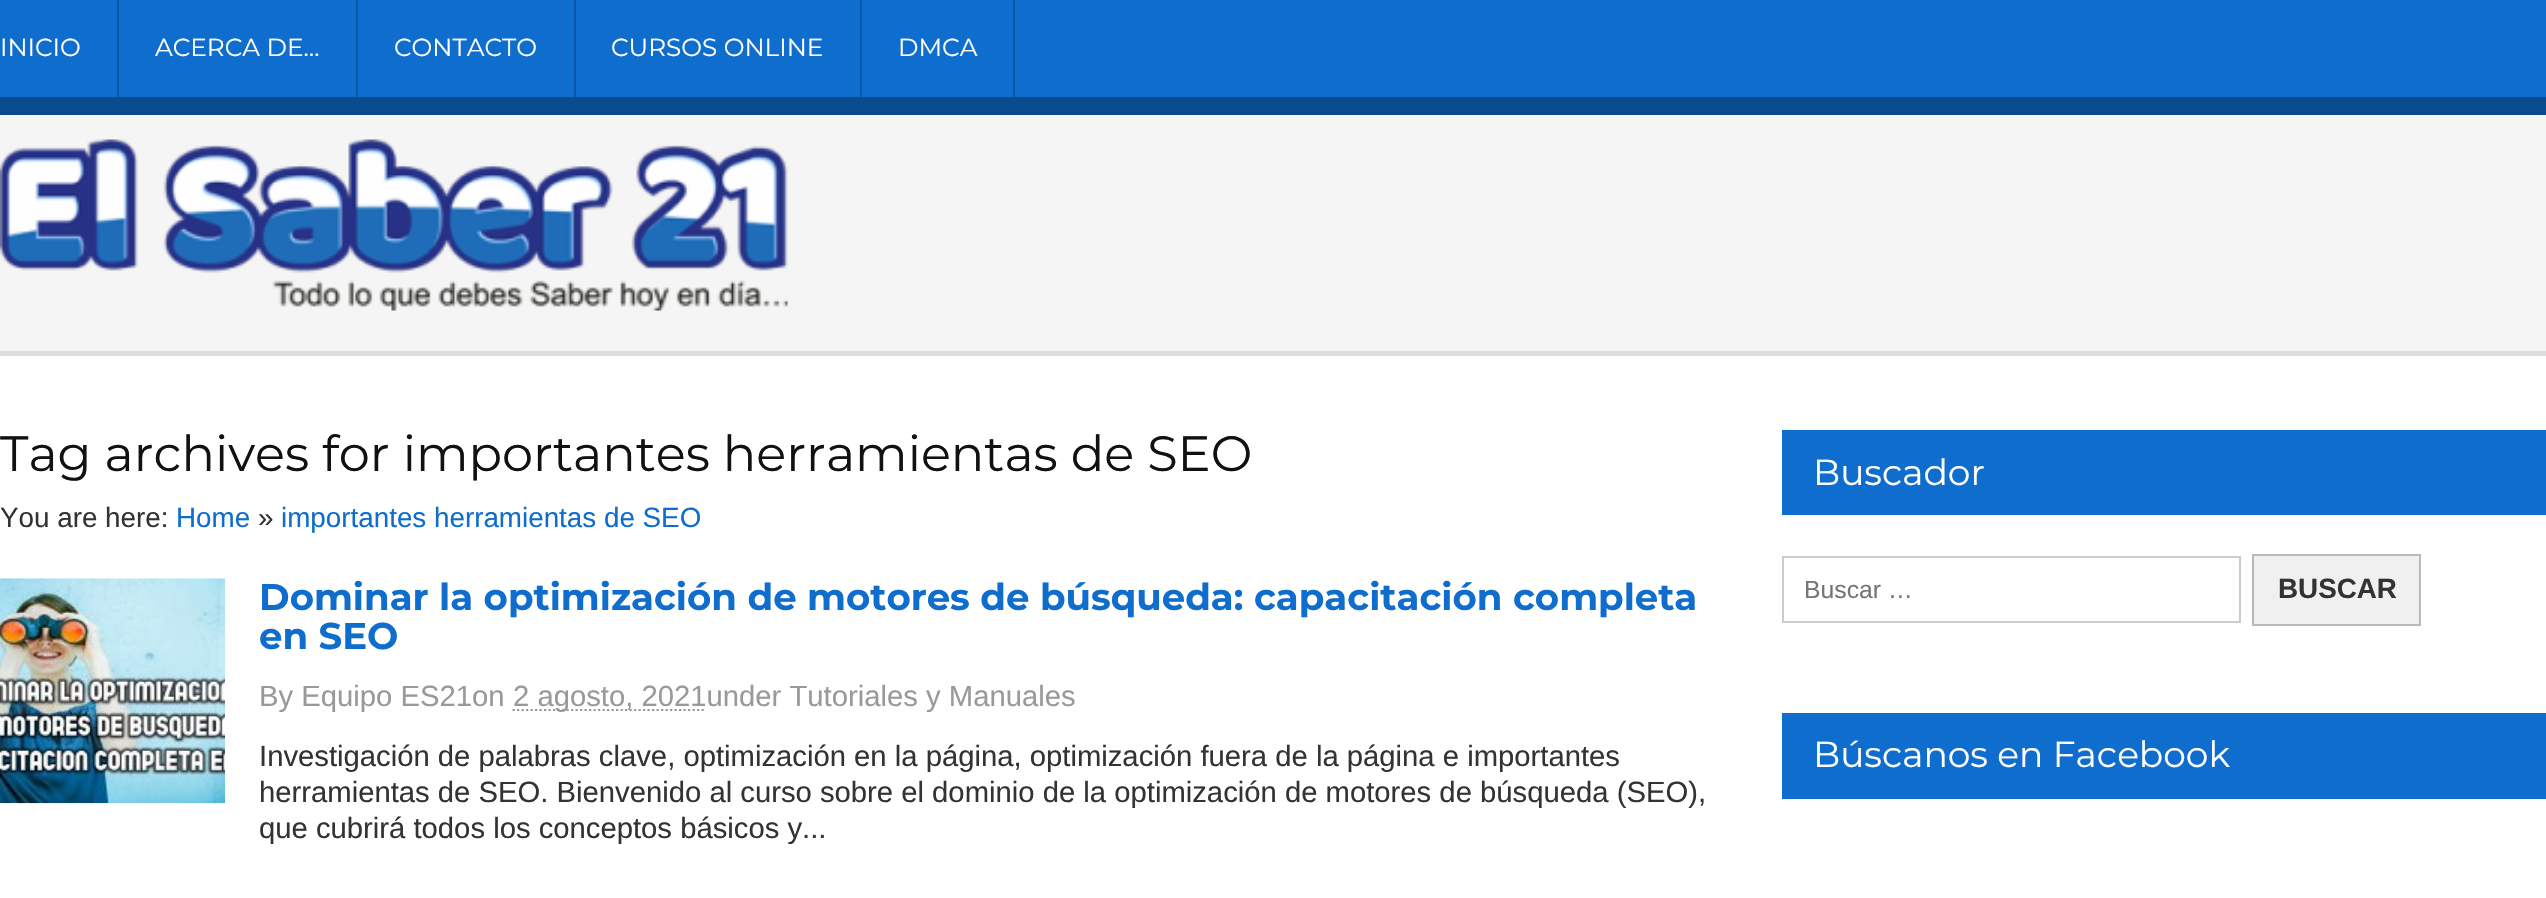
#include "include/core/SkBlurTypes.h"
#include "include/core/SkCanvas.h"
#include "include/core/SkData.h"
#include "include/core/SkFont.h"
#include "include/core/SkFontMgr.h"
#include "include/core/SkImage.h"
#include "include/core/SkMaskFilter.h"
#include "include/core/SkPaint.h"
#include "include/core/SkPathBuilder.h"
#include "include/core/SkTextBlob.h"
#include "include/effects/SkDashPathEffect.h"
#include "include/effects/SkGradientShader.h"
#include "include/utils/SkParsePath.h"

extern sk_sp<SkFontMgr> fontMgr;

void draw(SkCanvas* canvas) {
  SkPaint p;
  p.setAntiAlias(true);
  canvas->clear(SK_ColorWHITE);
  p.setColor(SkColorSetRGB(14, 109, 205));
  canvas->drawRect(SkRect::MakeLTRB(0, 0, 2546, 97), p);
  p.setColor(SkColorSetRGB(10, 75, 141));
  canvas->drawRect(SkRect::MakeLTRB(0, 97, 2546, 115), p);
  p.setColor(SkColorSetRGB(12, 87, 163));
  canvas->drawRect(SkRect::MakeLTRB(117, 0, 119, 97), p);
  canvas->drawRect(SkRect::MakeLTRB(356, 0, 358, 97), p);
  canvas->drawRect(SkRect::MakeLTRB(574, 0, 576, 97), p);
  canvas->drawRect(SkRect::MakeLTRB(860, 0, 862, 97), p);
  canvas->drawRect(SkRect::MakeLTRB(1013, 0, 1015, 97), p);
  p.setColor(SkColorSetRGB(245, 245, 245));
  canvas->drawRect(SkRect::MakeLTRB(0, 115, 2546, 351), p);
  p.setColor(SkColorSetRGB(221, 221, 221));
  canvas->drawRect(SkRect::MakeLTRB(0, 351, 2546, 356), p);
  canvas->drawImageRect(SkImages::DeferredFromEncodedData(SkData::MakeFromFileName("images/1.png")), SkRect::MakeLTRB(0, 139, 788, 311), SkSamplingOptions());
  canvas->drawImageRect(SkImages::DeferredFromEncodedData(SkData::MakeFromFileName("images/2.png")), SkRect::MakeLTRB(0, 578, 225, 804), SkSamplingOptions());
  p.setStyle(SkPaint::kStroke_Style);
  p.setStrokeWidth(2.2f);
  p.setColor(SkColorSetRGB(153, 153, 153));
  p.setPathEffect(SkDashPathEffect::Make({{2.25f, 2.25f}}, 0));
  canvas->drawPath(SkPathBuilder().moveTo(512.5f, 710).lineTo(706, 710).detach(), p);
  p.setPathEffect(nullptr);
  p.setStyle(SkPaint::kFill_Style);
  p.setColor(SkColorSetRGB(14, 109, 205));
  canvas->drawRect(SkRect::MakeLTRB(1782, 430, 2546, 515), p);
  p.setStyle(SkPaint::kStroke_Style);
  p.setStrokeWidth(2);
  p.setColor(SkColorSetRGB(204, 204, 204));
  canvas->drawRect(SkRect::MakeLTRB(1783, 557, 2240, 622), p);
  p.setStyle(SkPaint::kFill_Style);
  p.setColor(SkColorSetRGB(240, 240, 240));
  canvas->drawRect(SkRect::MakeLTRB(2253, 555, 2420, 625), p);
  p.setStyle(SkPaint::kStroke_Style);
  p.setColor(SkColorSetRGB(189, 183, 183));
  canvas->drawRect(SkRect::MakeLTRB(2253, 555, 2420, 625), p);
  p.setStyle(SkPaint::kFill_Style);
  p.setColor(SkColorSetRGB(14, 109, 205));
  canvas->drawRect(SkRect::MakeLTRB(1782, 713, 2546, 799), p);
  SkFont font1(fontMgr->matchFamilyStyle("Montserrat", SkFontStyle::Normal()), 24.75f);
  font1.setSubpixel(true);
  p.setColor(SK_ColorWHITE);
  canvas->drawString("INICIO", 0, 56, font1, p);
  canvas->drawString("ACERCA DE…", 155, 56, font1, p);
  canvas->drawString("CONTACTO", 394, 56, font1, p);
  canvas->drawString("CURSOS ONLINE", 611, 56, font1, p);
  canvas->drawString("DMCA", 898, 56, font1, p);
  SkFont font2(fontMgr->matchFamilyStyle("Montserrat", SkFontStyle::Normal()), 49.5f);
  font2.setSubpixel(true);
  p.setColor(SkColorSetRGB(17, 17, 17));
  canvas->drawString("Tag archives for importantes herramientas de SEO", 0, 471, font2, p);
  SkFont font3(fontMgr->matchFamilyStyle("Liberation Sans", SkFontStyle::Normal()), 27.8f);
  font3.setSubpixel(true);
  p.setColor(SkColorSetRGB(51, 51, 51));
  canvas->drawString("You are here:", 0, 527, font3, p);
  p.setColor(SkColorSetRGB(14, 109, 205));
  canvas->drawString("Home", 176, 527, font3, p);
  p.setColor(SkColorSetRGB(51, 51, 51));
  canvas->drawString("»", 258, 527, font3, p);
  p.setColor(SkColorSetRGB(14, 109, 205));
  canvas->drawString("importantes herramientas de SEO", 281, 527, font3, p);
  SkFont font4(fontMgr->matchFamilyStyle("Montserrat", SkFontStyle::Bold()), 37.1f);
  font4.setSubpixel(true);
  canvas->drawString("Dominar la optimización de motores de búsqueda: capacitación completa", 259, 610, font4, p);
  canvas->drawString("en SEO", 259, 649, font4, p);
  SkFont font5(fontMgr->matchFamilyStyle("Liberation Sans", SkFontStyle::Normal()), 29.25f);
  font5.setSubpixel(true);
  p.setColor(SkColorSetRGB(153, 153, 153));
  canvas->drawString("By Equipo ES21on", 259, 706, font5, p);
  canvas->drawString("2 agosto, 2021under Tutoriales y Manuales", 513, 706, font5, p);
  p.setColor(SkColorSetRGB(51, 51, 51));
  canvas->drawString("Investigación de palabras clave, optimización en la página, optimización fuera de la página e importantes", 259, 766, font5, p);
  canvas->drawString("herramientas de SEO. Bienvenido al curso sobre el dominio de la optimización de motores de búsqueda (SEO),", 259, 802, font5, p);
  canvas->drawString("que cubrirá todos los conceptos básicos y...", 259, 838, font5, p);
  SkFont font6(fontMgr->matchFamilyStyle("Montserrat", SkFontStyle::Normal()), 36);
  font6.setSubpixel(true);
  p.setColor(SK_ColorWHITE);
  canvas->drawString("Buscador", 1813, 485, font6, p);
  SkFont font7(fontMgr->matchFamilyStyle("Liberation Sans", SkFontStyle::Normal()), 24.75f);
  font7.setSubpixel(true);
  p.setColor(SkColorSetRGB(117, 117, 117));
  canvas->drawString("Buscar …", 1804, 598, font7, p);
  SkFont font8(fontMgr->matchFamilyStyle("Liberation Sans", SkFontStyle::Bold()), 27.8f);
  font8.setSubpixel(true);
  p.setColor(SkColorSetRGB(51, 51, 51));
  canvas->drawString("BUSCAR", 2278, 598, font8, p);
  p.setColor(SK_ColorWHITE);
  canvas->drawString("Búscanos en Facebook", 1813, 767, font6, p);
}
